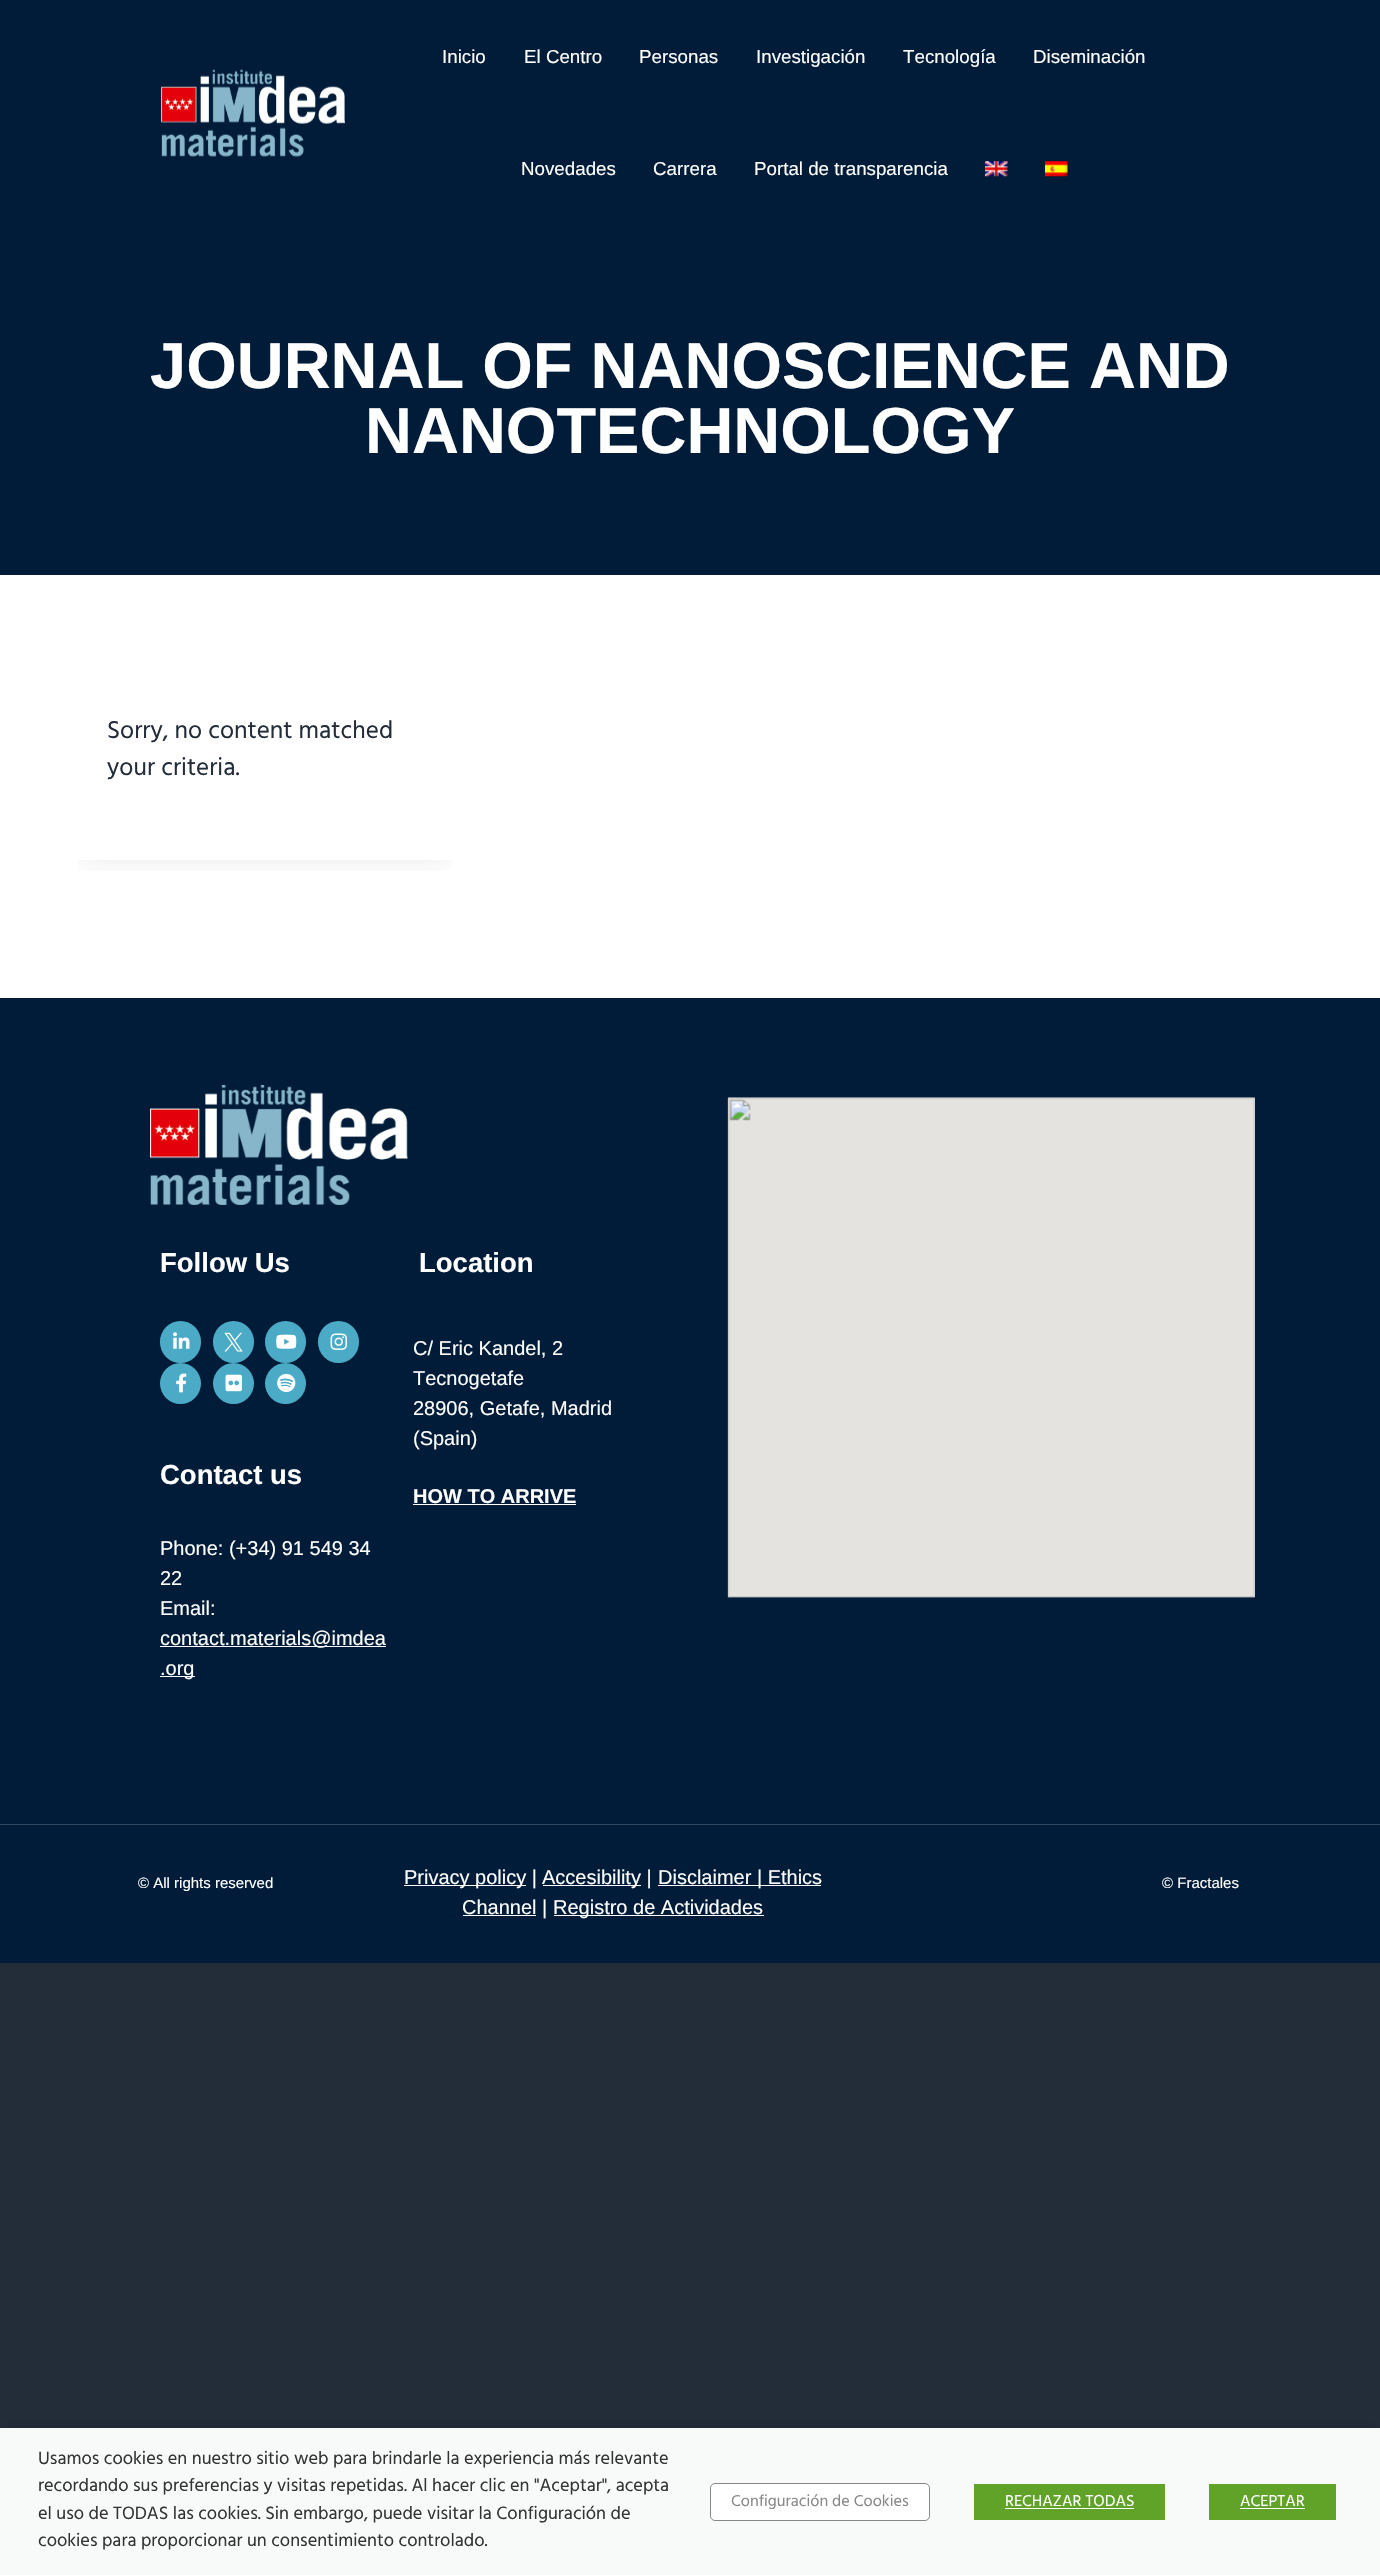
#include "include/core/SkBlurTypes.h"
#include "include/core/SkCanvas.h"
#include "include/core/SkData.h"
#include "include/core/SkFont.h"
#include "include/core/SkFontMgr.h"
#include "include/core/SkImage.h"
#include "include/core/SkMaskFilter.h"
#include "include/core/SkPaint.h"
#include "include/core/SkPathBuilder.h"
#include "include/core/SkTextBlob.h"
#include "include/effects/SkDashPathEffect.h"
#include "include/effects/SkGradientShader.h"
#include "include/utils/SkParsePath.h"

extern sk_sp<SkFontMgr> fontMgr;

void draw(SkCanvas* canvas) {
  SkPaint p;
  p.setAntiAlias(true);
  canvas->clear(SkColorSetRGB(35, 44, 57));
  p.setColor(SK_ColorWHITE);
  canvas->drawRect(SkRect::MakeLTRB(0, 575, 1380, 998), p);
  p.setColor(SkColorSetRGB(0, 28, 56));
  canvas->drawRect(SkRect::MakeLTRB(0, 0, 1380, 575), p);
  canvas->drawImageRect(SkImages::DeferredFromEncodedData(SkData::MakeFromFileName("images/1.png")), SkRect::MakeLTRB(161, 69, 345, 157), SkSamplingOptions());
  canvas->drawImageRect(SkImages::DeferredFromEncodedData(SkData::MakeFromFileName("images/2.png")), SkRect::MakeLTRB(985, 161, 1008, 177), SkSamplingOptions());
  canvas->drawImageRect(SkImages::DeferredFromEncodedData(SkData::MakeFromFileName("images/3.png")), SkRect::MakeLTRB(1045, 161, 1068, 177), SkSamplingOptions());
  canvas->save();
  canvas->clipRect(SkRect::MakeLTRB(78, 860, 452, 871));
  p.setColor(SkColorSetARGB(26, 35, 44, 57));
  p.setMaskFilter(SkMaskFilter::MakeBlur(kNormal_SkBlurStyle, 12.5f));
  canvas->drawRect(SkRect::MakeLTRB(81, 700, 449, 860), p);
  p.setMaskFilter(nullptr);
  canvas->restore();
  p.setColor(SkColorSetRGB(0, 28, 56));
  canvas->drawRect(SkRect::MakeLTRB(0, 998, 1380, 1824), p);
  canvas->drawImageRect(SkImages::DeferredFromEncodedData(SkData::MakeFromFileName("images/4.png")), SkRect::MakeLTRB(150, 1085, 408, 1205), SkSamplingOptions());
  p.setColor(SkColorSetRGB(75, 171, 198));
  canvas->drawRoundRect(SkRect::MakeLTRB(160, 1321, 201, 1363), 20.5f, 20.5f, p);
  canvas->drawImageRect(SkImages::DeferredFromEncodedData(SkData::MakeFromFileName("images/5.png")), SkRect::MakeLTRB(173, 1332, 190, 1349), SkSamplingOptions());
  canvas->drawRoundRect(SkRect::MakeLTRB(213, 1321, 254, 1363), 20.5f, 20.5f, p);
  canvas->drawImageRect(SkImages::DeferredFromEncodedData(SkData::MakeFromFileName("images/6.png")), SkRect::MakeLTRB(224, 1332, 243, 1352), SkSamplingOptions());
  canvas->drawRoundRect(SkRect::MakeLTRB(265, 1321, 306, 1363), 20.5f, 20.5f, p);
  canvas->drawImageRect(SkImages::DeferredFromEncodedData(SkData::MakeFromFileName("images/7.png")), SkRect::MakeLTRB(276, 1334, 297, 1349), SkSamplingOptions());
  canvas->drawRoundRect(SkRect::MakeLTRB(318, 1321, 359, 1363), 20.5f, 20.5f, p);
  canvas->drawImageRect(SkImages::DeferredFromEncodedData(SkData::MakeFromFileName("images/8.png")), SkRect::MakeLTRB(330, 1333, 347, 1350), SkSamplingOptions());
  canvas->drawCircle(180.5f, 1383.5f, 20.5f, p);
  canvas->drawImageRect(SkImages::DeferredFromEncodedData(SkData::MakeFromFileName("images/9.png")), SkRect::MakeLTRB(176, 1373, 187, 1393), SkSamplingOptions());
  canvas->drawCircle(233.5f, 1383.5f, 20.5f, p);
  canvas->drawImageRect(SkImages::DeferredFromEncodedData(SkData::MakeFromFileName("images/10.png")), SkRect::MakeLTRB(225, 1374, 242, 1392), SkSamplingOptions());
  canvas->drawCircle(285.5f, 1383.5f, 20.5f, p);
  canvas->drawImageRect(SkImages::DeferredFromEncodedData(SkData::MakeFromFileName("images/11.png")), SkRect::MakeLTRB(277, 1373, 296, 1393), SkSamplingOptions());
  p.setColor(SK_ColorWHITE);
  canvas->drawRect(SkRect::MakeLTRB(160, 1646, 386, 1647), p);
  canvas->drawRect(SkRect::MakeLTRB(160, 1676, 195, 1677), p);
  canvas->drawRect(SkRect::MakeLTRB(413, 1504, 576, 1505), p);
  canvas->drawImageRect(SkImages::DeferredFromEncodedData(SkData::MakeFromFileName("images/12.png")), SkRect::MakeLTRB(727, 1097, 1255, 1598), SkSamplingOptions());
  p.setColor(SkColorSetRGB(0, 28, 56));
  canvas->drawRect(SkRect::MakeLTRB(0, 1825, 1380, 1963), p);
  p.setColor(SkColorSetRGB(48, 71, 94));
  canvas->drawRect(SkRect::MakeLTRB(0, 1824, 1380, 1825), p);
  p.setColor(SK_ColorWHITE);
  canvas->drawRect(SkRect::MakeLTRB(404, 1885, 526, 1886), p);
  canvas->drawRect(SkRect::MakeLTRB(543, 1885, 641, 1886), p);
  canvas->drawRect(SkRect::MakeLTRB(658, 1885, 821, 1886), p);
  canvas->drawRect(SkRect::MakeLTRB(463, 1915, 536, 1916), p);
  canvas->drawRect(SkRect::MakeLTRB(554, 1915, 764, 1916), p);
  p.setColor(SkColorSetARGB(128, 0, 0, 0));
  p.setMaskFilter(SkMaskFilter::MakeBlur(kNormal_SkBlurStyle, 6));
  canvas->drawRect(SkRect::MakeLTRB(0, 2434, 1380, 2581), p);
  p.setMaskFilter(nullptr);
  p.setColor(SkColorSetRGB(248, 249, 249));
  canvas->drawRect(SkRect::MakeLTRB(0, 2428, 1380, 2575), p);
  p.setColor(SK_ColorWHITE);
  canvas->drawRoundRect(SkRect::MakeLTRB(710.5f, 2483.5f, 929.5f, 2520.5f), 4.5f, 4.5f, p);
  p.setStyle(SkPaint::kStroke_Style);
  p.setStrokeWidth(1);
  p.setColor(SkColorSetRGB(137, 136, 136));
  canvas->drawRoundRect(SkRect::MakeLTRB(710.5f, 2483.5f, 929.5f, 2520.5f), 4.5f, 4.5f, p);
  p.setStyle(SkPaint::kFill_Style);
  p.setColor(SkColorSetRGB(97, 162, 41));
  canvas->drawRect(SkRect::MakeLTRB(974, 2484, 1165, 2520), p);
  p.setColor(SK_ColorWHITE);
  canvas->drawRect(SkRect::MakeLTRB(1005, 2508, 1134, 2509), p);
  p.setColor(SkColorSetRGB(97, 162, 41));
  canvas->drawRect(SkRect::MakeLTRB(1209, 2484, 1336, 2520), p);
  p.setColor(SK_ColorWHITE);
  canvas->drawRect(SkRect::MakeLTRB(1240, 2508, 1305, 2509), p);
  SkFont font1(fontMgr->matchFamilyStyle("Liberation Sans", SkFontStyle::Normal()), 18.75f);
  font1.setSubpixel(true);
  canvas->drawString("Inicio", 442, 63, font1, p);
  canvas->drawString("El Centro", 524, 63, font1, p);
  canvas->drawString("Personas", 639, 63, font1, p);
  canvas->drawString("Investigación", 756, 63, font1, p);
  canvas->drawString("Tecnología", 903, 63, font1, p);
  canvas->drawString("Diseminación", 1033, 63, font1, p);
  canvas->drawString("Novedades", 521, 175, font1, p);
  canvas->drawString("Carrera", 653, 175, font1, p);
  canvas->drawString("Portal de transparencia", 754, 175, font1, p);
  SkFont font2(fontMgr->matchFamilyStyle("Liberation Sans", SkFontStyle::Bold()), 65);
  font2.setSubpixel(true);
  canvas->drawString("JOURNAL OF NANOSCIENCE AND", 150, 388, font2, p);
  canvas->drawString("NANOTECHNOLOGY", 365, 453, font2, p);
  SkFont font3(fontMgr->matchFamilyStyle("Hind", SkFontStyle::Normal()), 25);
  font3.setSubpixel(true);
  p.setColor(SkColorSetRGB(35, 44, 57));
  canvas->drawString("Sorry, no content matched", 107, 738, font3, p);
  canvas->drawString("your criteria.", 107, 775, font3, p);
  SkFont font4(fontMgr->matchFamilyStyle("Liberation Sans", SkFontStyle::Bold()), 27.5f);
  font4.setSubpixel(true);
  p.setColor(SK_ColorWHITE);
  canvas->drawString("Follow Us", 160, 1272, font4, p);
  canvas->drawString("Contact us", 160, 1484, font4, p);
  SkFont font5(fontMgr->matchFamilyStyle("Liberation Sans", SkFontStyle::Normal()), 20);
  font5.setSubpixel(true);
  canvas->drawString("Phone: (+34) 91 549 34", 160, 1555, font5, p);
  canvas->drawString("22", 160, 1585, font5, p);
  canvas->drawString("Email:", 160, 1615, font5, p);
  canvas->drawString("contact.materials@imdea", 160, 1645, font5, p);
  canvas->drawString(".org", 160, 1675, font5, p);
  canvas->drawString("Location", 419, 1272, font4, p);
  canvas->drawString("C/ Eric Kandel, 2", 413, 1355, font5, p);
  canvas->drawString("Tecnogetafe", 413, 1385, font5, p);
  canvas->drawString("28906, Getafe, Madrid", 413, 1415, font5, p);
  canvas->drawString("(Spain)", 413, 1445, font5, p);
  SkFont font6(fontMgr->matchFamilyStyle("Liberation Sans", SkFontStyle::Bold()), 20);
  font6.setSubpixel(true);
  canvas->drawString("HOW TO ARRIVE", 413, 1503, font6, p);
  SkFont font7(fontMgr->matchFamilyStyle("Liberation Sans", SkFontStyle::Normal()), 15);
  font7.setSubpixel(true);
  canvas->drawString("© All rights reserved", 138, 1888, font7, p);
  canvas->drawString("Privacy policy |", 404, 1884, font5, p);
  canvas->drawString("Accesibility |", 542, 1884, font5, p);
  canvas->drawString("Disclaimer | Ethics", 658, 1884, font5, p);
  canvas->drawString("Channel |", 462, 1914, font5, p);
  canvas->drawString("Registro de Actividades", 553, 1914, font5, p);
  canvas->drawString("© Fractales", 1162, 1888, font7, p);
  SkFont font8(fontMgr->matchFamilyStyle("Hind", SkFontStyle::Normal()), 18.35f);
  font8.setSubpixel(true);
  p.setColor(SkColorSetRGB(51, 51, 51));
  canvas->drawString("Usamos cookies en nuestro sitio web para brindarle la experiencia más relevante", 38, 2464, font8, p);
  canvas->drawString("recordando sus preferencias y visitas repetidas. Al hacer clic en \"Aceptar\", acepta", 38, 2491, font8, p);
  canvas->drawString("el uso de TODAS las cookies. Sin embargo, puede visitar la Configuración de", 38, 2519, font8, p);
  canvas->drawString("cookies para proporcionar un consentimiento controlado.", 38, 2546, font8, p);
  SkFont font9(fontMgr->matchFamilyStyle("Hind", SkFontStyle::Normal()), 16.25f);
  font9.setSubpixel(true);
  p.setColor(SkColorSetRGB(137, 136, 136));
  canvas->drawString("Configuración de Cookies", 731, 2506, font9, p);
  p.setColor(SK_ColorWHITE);
  canvas->drawString("RECHAZAR TODAS", 1005, 2506, font9, p);
  canvas->drawString("ACEPTAR", 1240, 2506, font9, p);
}
